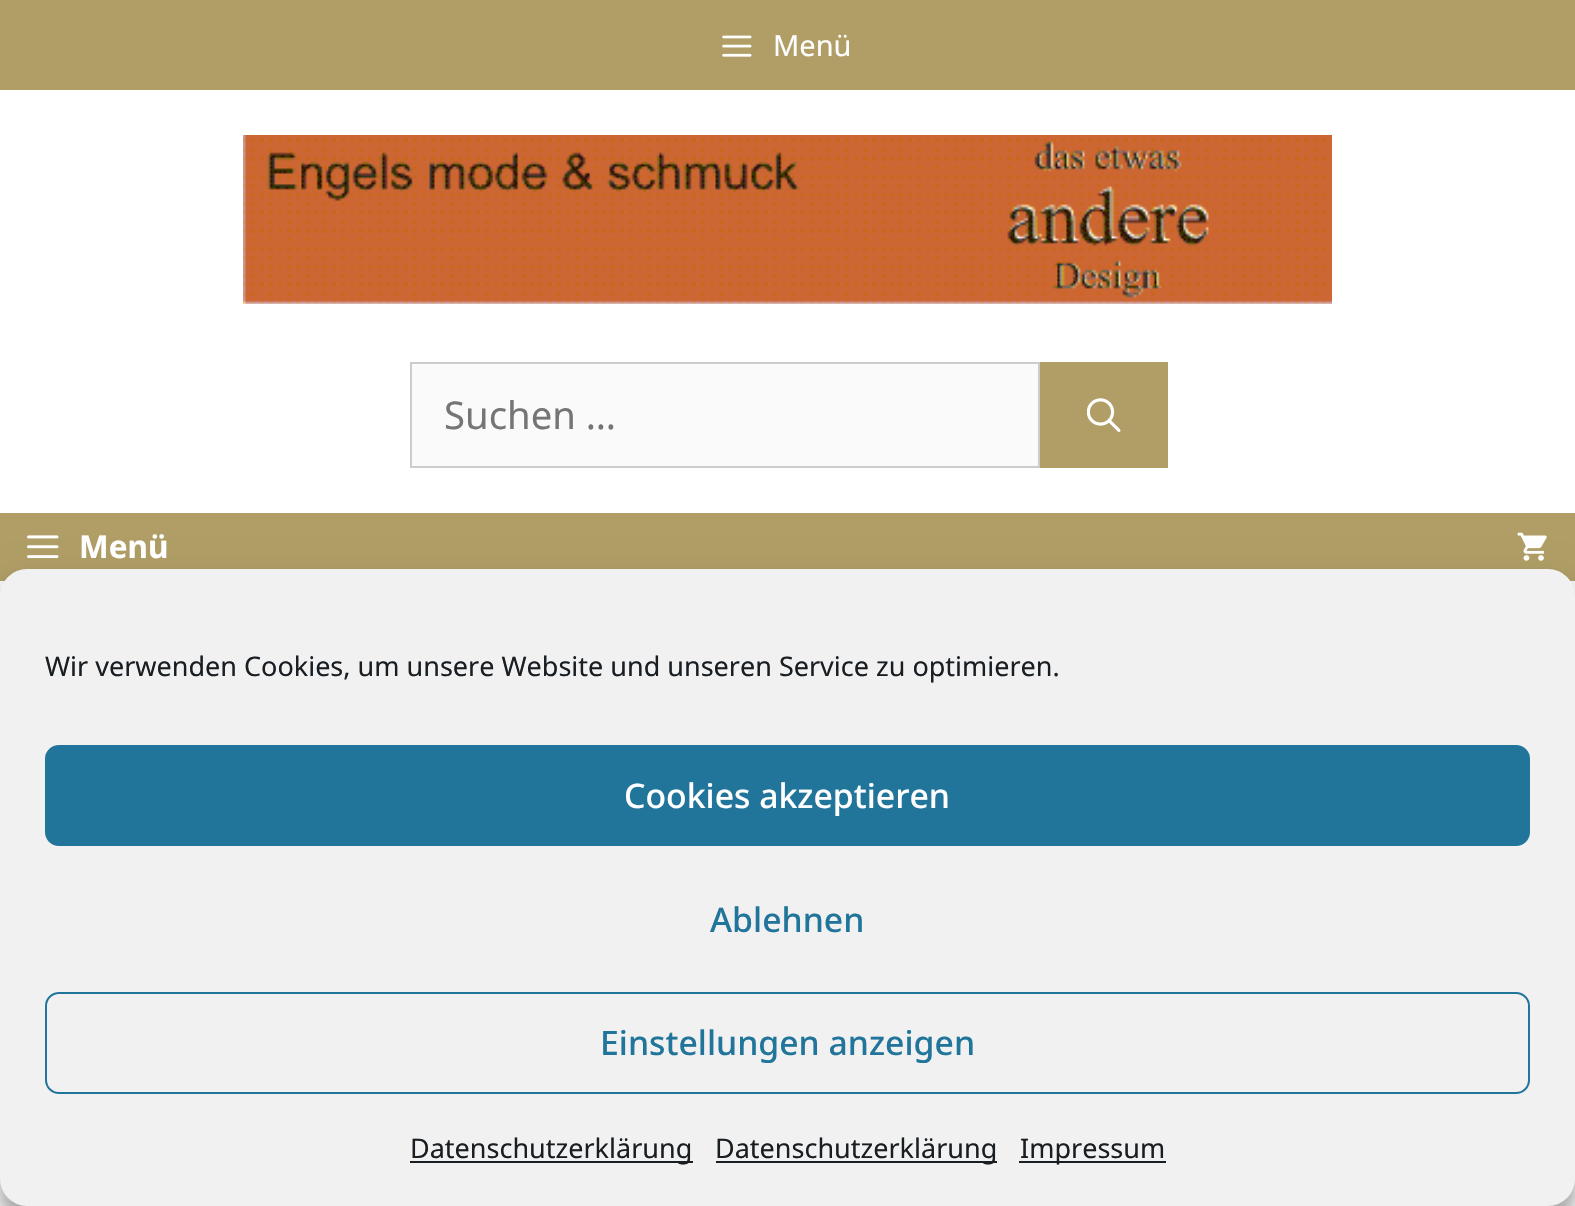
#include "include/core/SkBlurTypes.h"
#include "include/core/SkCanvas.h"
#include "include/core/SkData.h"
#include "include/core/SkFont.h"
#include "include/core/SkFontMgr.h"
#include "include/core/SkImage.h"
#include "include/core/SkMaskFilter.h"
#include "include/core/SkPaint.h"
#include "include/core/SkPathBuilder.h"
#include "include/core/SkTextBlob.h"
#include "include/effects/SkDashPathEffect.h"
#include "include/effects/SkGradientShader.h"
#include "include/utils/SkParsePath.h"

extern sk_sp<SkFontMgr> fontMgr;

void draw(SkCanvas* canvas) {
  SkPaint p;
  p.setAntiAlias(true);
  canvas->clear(SkColorSetRGB(247, 248, 249));
  p.setColor(SkColorSetRGB(176, 158, 102));
  canvas->drawRect(SkRect::MakeLTRB(0, 0, 1575, 90), p);
  canvas->drawImageRect(SkImages::DeferredFromEncodedData(SkData::MakeFromFileName("images/1.png")), SkRect::MakeLTRB(722, 35, 752, 57), SkSamplingOptions());
  p.setColor(SK_ColorWHITE);
  canvas->drawRect(SkRect::MakeLTRB(0, 90, 1575, 513), p);
  canvas->drawImageRect(SkImages::DeferredFromEncodedData(SkData::MakeFromFileName("images/2.png")), SkRect::MakeLTRB(243, 135, 1332, 304), SkSamplingOptions());
  p.setColor(SkColorSetRGB(250, 250, 250));
  canvas->drawRect(SkRect::MakeLTRB(411, 363, 1039, 467), p);
  p.setStyle(SkPaint::kStroke_Style);
  p.setStrokeWidth(2);
  p.setColor(SkColorSetRGB(204, 204, 204));
  canvas->drawRect(SkRect::MakeLTRB(411, 363, 1039, 467), p);
  p.setStyle(SkPaint::kFill_Style);
  p.setColor(SkColorSetRGB(176, 158, 102));
  canvas->drawRect(SkRect::MakeLTRB(1040, 362, 1168, 468), p);
  canvas->drawImageRect(SkImages::DeferredFromEncodedData(SkData::MakeFromFileName("images/3.png")), SkRect::MakeLTRB(1087, 398, 1121, 432), SkSamplingOptions());
  canvas->drawRect(SkRect::MakeLTRB(0, 513, 1575, 581), p);
  canvas->drawImageRect(SkImages::DeferredFromEncodedData(SkData::MakeFromFileName("images/4.png")), SkRect::MakeLTRB(27, 535, 59, 559), SkSamplingOptions());
  canvas->drawImageRect(SkImages::DeferredFromEncodedData(SkData::MakeFromFileName("images/5.png")), SkRect::MakeLTRB(1517, 532, 1547, 561), SkSamplingOptions());
  p.setColor(SK_ColorWHITE);
  canvas->drawRect(SkRect::MakeLTRB(0, 1179, 1575, 1206), p);
  p.setColor(SkColorSetARGB(59, 0, 0, 0));
  p.setMaskFilter(SkMaskFilter::MakeBlur(kNormal_SkBlurStyle, 7));
  canvas->drawRoundRect(SkRect::MakeLTRB(0, 583, 1575, 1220), 27, 27, p);
  p.setMaskFilter(nullptr);
  p.setColor(SkColorSetARGB(48, 0, 0, 0));
  p.setMaskFilter(SkMaskFilter::MakeBlur(kNormal_SkBlurStyle, 22.5f));
  canvas->drawRoundRect(SkRect::MakeLTRB(0, 592, 1575, 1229), 27, 27, p);
  p.setMaskFilter(nullptr);
  p.setColor(SkColorSetRGB(241, 241, 241));
  canvas->drawRoundRect(SkRect::MakeLTRB(0, 569, 1575, 1206), 27, 27, p);
  p.setColor(SkColorSetRGB(33, 117, 155));
  canvas->drawRoundRect(SkRect::MakeLTRB(46, 746, 1529, 845), 13, 13, p);
  p.setStyle(SkPaint::kStroke_Style);
  canvas->drawRoundRect(SkRect::MakeLTRB(46, 746, 1529, 845), 13, 13, p);
  canvas->drawRoundRect(SkRect::MakeLTRB(46, 993, 1529, 1093), 13, 13, p);
  p.setStyle(SkPaint::kFill_Style);
  p.setColor(SkColorSetRGB(25, 30, 35));
  canvas->drawRect(SkRect::MakeLTRB(410, 1161, 693, 1163), p);
  canvas->drawRect(SkRect::MakeLTRB(716, 1161, 997, 1163), p);
  canvas->drawRect(SkRect::MakeLTRB(1019, 1161, 1166, 1163), p);
  SkFont font1(fontMgr->matchFamilyStyle("Noto Sans", SkFontStyle::Normal()), 29);
  font1.setSubpixel(true);
  p.setColor(SK_ColorWHITE);
  canvas->drawString("Menü", 773, 56, font1, p);
  SkFont font2(fontMgr->matchFamilyStyle("Noto Sans", SkFontStyle::Normal()), 38.25f);
  font2.setSubpixel(true);
  p.setColor(SkColorSetRGB(117, 117, 117));
  canvas->drawString("Suchen …", 444, 429, font2, p);
  SkFont font3(fontMgr->matchFamilyStyle("Noto Sans", SkFontStyle::Bold()), 31.5f);
  font3.setSubpixel(true);
  p.setColor(SK_ColorWHITE);
  canvas->drawString("Menü", 79, 558, font3, p);
  SkFont font4(fontMgr->matchFamilyStyle("Noto Sans", SkFontStyle::Normal()), 27);
  font4.setSubpixel(true);
  p.setColor(SkColorSetRGB(25, 30, 35));
  canvas->drawString("Wir verwenden Cookies, um unsere Website und unseren Service zu optimieren.", 45, 676, font4, p);
  SkFont font5(fontMgr->matchFamilyStyle("Noto Sans", SkFontStyle(500, SkFontStyle::kNormal_Width, SkFontStyle::kUpright_Slant)), 33.75f);
  font5.setSubpixel(true);
  p.setColor(SK_ColorWHITE);
  canvas->drawString("Cookies akzeptieren", 624, 808, font5, p);
  p.setColor(SkColorSetRGB(33, 117, 155));
  canvas->drawString("Ablehnen", 710, 932, font5, p);
  canvas->drawString("Einstellungen anzeigen", 600, 1055, font5, p);
  p.setColor(SkColorSetRGB(25, 30, 35));
  canvas->drawString("Datenschutzerklärung", 410, 1158, font4, p);
  canvas->drawString("Datenschutzerklärung", 715, 1158, font4, p);
  canvas->drawString("Impressum", 1020, 1158, font4, p);
}
